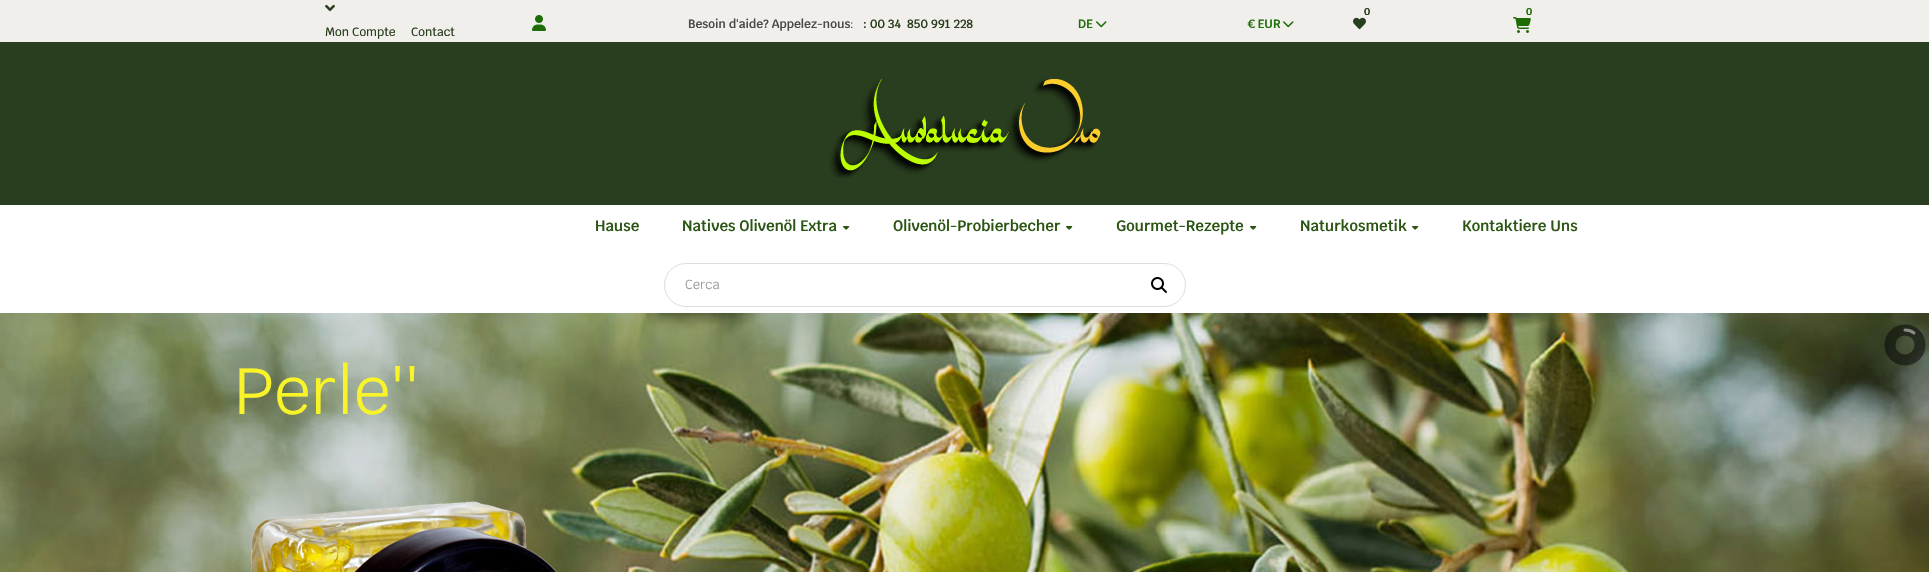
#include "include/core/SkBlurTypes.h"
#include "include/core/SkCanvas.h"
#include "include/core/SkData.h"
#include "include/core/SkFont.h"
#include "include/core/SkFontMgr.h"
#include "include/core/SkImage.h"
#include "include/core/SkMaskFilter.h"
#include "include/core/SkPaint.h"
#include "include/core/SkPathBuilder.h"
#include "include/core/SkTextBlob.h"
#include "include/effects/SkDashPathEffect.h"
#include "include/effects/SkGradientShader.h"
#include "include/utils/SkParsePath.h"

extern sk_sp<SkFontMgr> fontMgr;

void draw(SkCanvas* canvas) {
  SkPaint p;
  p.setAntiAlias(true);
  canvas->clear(SK_ColorWHITE);
  p.setColor(SkColorSetRGB(241, 239, 236));
  canvas->drawRect(SkRect::MakeLTRB(0, 0, 1929, 42), p);
  canvas->drawImageRect(SkImages::DeferredFromEncodedData(SkData::MakeFromFileName("images/1.png")), SkRect::MakeLTRB(1353, 17, 1366, 30), SkSamplingOptions());
  canvas->drawImageRect(SkImages::DeferredFromEncodedData(SkData::MakeFromFileName("images/2.png")), SkRect::MakeLTRB(1513, 17, 1531, 33), SkSamplingOptions());
  canvas->drawImageRect(SkImages::DeferredFromEncodedData(SkData::MakeFromFileName("images/3.png")), SkRect::MakeLTRB(532, 15, 546, 31), SkSamplingOptions());
  canvas->drawImageRect(SkImages::DeferredFromEncodedData(SkData::MakeFromFileName("images/4.png")), SkRect::MakeLTRB(1096, 21, 1107, 28), SkSamplingOptions());
  canvas->drawImageRect(SkImages::DeferredFromEncodedData(SkData::MakeFromFileName("images/4.png")), SkRect::MakeLTRB(1283, 21, 1294, 28), SkSamplingOptions());
  canvas->drawImageRect(SkImages::DeferredFromEncodedData(SkData::MakeFromFileName("images/5.png")), SkRect::MakeLTRB(325, 4, 335, 12), SkSamplingOptions());
  p.setColor(SkColorSetRGB(41, 62, 30));
  canvas->drawRect(SkRect::MakeLTRB(0, 42, 1929, 205), p);
  canvas->drawImageRect(SkImages::DeferredFromEncodedData(SkData::MakeFromFileName("images/6.png")), SkRect::MakeLTRB(829, 79, 1101, 178), SkSamplingOptions());
  canvas->drawImageRect(SkImages::DeferredFromEncodedData(SkData::MakeFromFileName("images/7.png")), SkRect::MakeLTRB(843, 226, 850, 230), SkSamplingOptions());
  canvas->drawImageRect(SkImages::DeferredFromEncodedData(SkData::MakeFromFileName("images/7.png")), SkRect::MakeLTRB(1066, 226, 1073, 230), SkSamplingOptions());
  canvas->drawImageRect(SkImages::DeferredFromEncodedData(SkData::MakeFromFileName("images/7.png")), SkRect::MakeLTRB(1250, 226, 1257, 230), SkSamplingOptions());
  canvas->drawImageRect(SkImages::DeferredFromEncodedData(SkData::MakeFromFileName("images/7.png")), SkRect::MakeLTRB(1412, 226, 1419, 230), SkSamplingOptions());
  p.setStyle(SkPaint::kStroke_Style);
  p.setStrokeWidth(1);
  p.setColor(SkColorSetRGB(221, 221, 221));
  canvas->drawRoundRect(SkRect::MakeLTRB(664.5f, 263.5f, 1185.5f, 306.5f), 21.5f, 21.5f, p);
  canvas->drawImageRect(SkImages::DeferredFromEncodedData(SkData::MakeFromFileName("images/8.png")), SkRect::MakeLTRB(1151, 277, 1167, 293), SkSamplingOptions());
  canvas->drawImageRect(SkImages::DeferredFromEncodedData(SkData::MakeFromFileName("images/9.png")), SkRect::MakeLTRB(0, 313, 1929, 572), SkSamplingOptions());
  p.setStrokeWidth(11);
  p.setColor(SkColorSetARGB(128, 0, 0, 0));
  canvas->drawPath(SkPathBuilder().moveTo(1905, 330).cubicTo(1913.5f, 330, 1920, 336.5f, 1920, 345).cubicTo(1920, 353.5f, 1913.5f, 360, 1905, 360).cubicTo(1896.5f, 360, 1890, 353.5f, 1890, 345).cubicTo(1890, 336.5f, 1896.5f, 330, 1905, 330).detach(), p);
  p.setStrokeWidth(3);
  p.setStrokeCap(SkPaint::kRound_Cap);
  p.setColor(SkColorSetARGB(128, 238, 238, 238));
  canvas->drawPath(SkPathBuilder().moveTo(1905, 330).cubicTo(1908, 330, 1911.5f, 331, 1914, 333).detach(), p);
  canvas->drawImageRect(SkImages::DeferredFromEncodedData(SkData::MakeFromFileName("images/10.png")), SkRect::MakeLTRB(251, 501, 557, 572), SkSamplingOptions());
  SkFont font1(fontMgr->matchFamilyStyle("Krub", SkFontStyle::Bold()), 10);
  font1.setSubpixel(true);
  p.setStyle(SkPaint::kFill_Style);
  p.setColor(SkColorSetRGB(41, 62, 30));
  canvas->drawString("0", 1364, 15, font1, p);
  p.setColor(SkColorSetRGB(29, 108, 6));
  canvas->drawString("0", 1526, 15, font1, p);
  SkFont font2(fontMgr->matchFamilyStyle("Krub", SkFontStyle(600, SkFontStyle::kNormal_Width, SkFontStyle::kUpright_Slant)), 12);
  font2.setSubpixel(true);
  p.setColor(SkColorSetRGB(74, 74, 74));
  canvas->drawString("Besoin d'aide? Appelez-nous", 688, 28, font2, p);
  SkFont font3(fontMgr->matchFamilyStyle("Krub", SkFontStyle::Normal()), 12);
  font3.setSubpixel(true);
  p.setColor(SkColorSetRGB(41, 62, 30));
  canvas->drawString(":", 850, 28, font3, p);
  canvas->drawString(": 00 34  850 991 228", 863, 28, font2, p);
  p.setColor(SkColorSetRGB(29, 108, 6));
  canvas->drawString("DE", 1078, 28, font2, p);
  canvas->drawString("€ EUR", 1248, 28, font2, p);
  SkFont font4(fontMgr->matchFamilyStyle("Krub", SkFontStyle(500, SkFontStyle::kNormal_Width, SkFontStyle::kUpright_Slant)), 12);
  font4.setSubpixel(true);
  p.setColor(SkColorSetRGB(41, 62, 30));
  canvas->drawString("Mon Compte", 325, 36, font4, p);
  canvas->drawString("Contact", 411, 36, font4, p);
  SkFont font5(fontMgr->matchFamilyStyle("Krub", SkFontStyle(600, SkFontStyle::kNormal_Width, SkFontStyle::kUpright_Slant)), 15);
  font5.setSubpixel(true);
  p.setColor(SkColorSetRGB(42, 85, 19));
  canvas->drawString("Hause", 595, 231, font5, p);
  canvas->drawString("Natives Olivenöl Extra", 682, 231, font5, p);
  canvas->drawString("Olivenöl-Probierbecher", 893, 231, font5, p);
  canvas->drawString("Gourmet-Rezepte", 1116, 231, font5, p);
  canvas->drawString("Naturkosmetik", 1300, 231, font5, p);
  canvas->drawString("Kontaktiere Uns", 1462, 231, font5, p);
  SkFont font6(fontMgr->matchFamilyStyle("Krub", SkFontStyle::Normal()), 13);
  font6.setSubpixel(true);
  p.setColor(SkColorSetRGB(153, 153, 153));
  canvas->drawString("Cerca", 685, 289, font6, p);
  SkFont font7(fontMgr->matchFamilyStyle("Krub", SkFontStyle::Normal()), 65);
  font7.setSubpixel(true);
  p.setColor(SkColorSetRGB(248, 244, 41));
  canvas->drawString("Perle''", 234, 414, font7, p);
}
